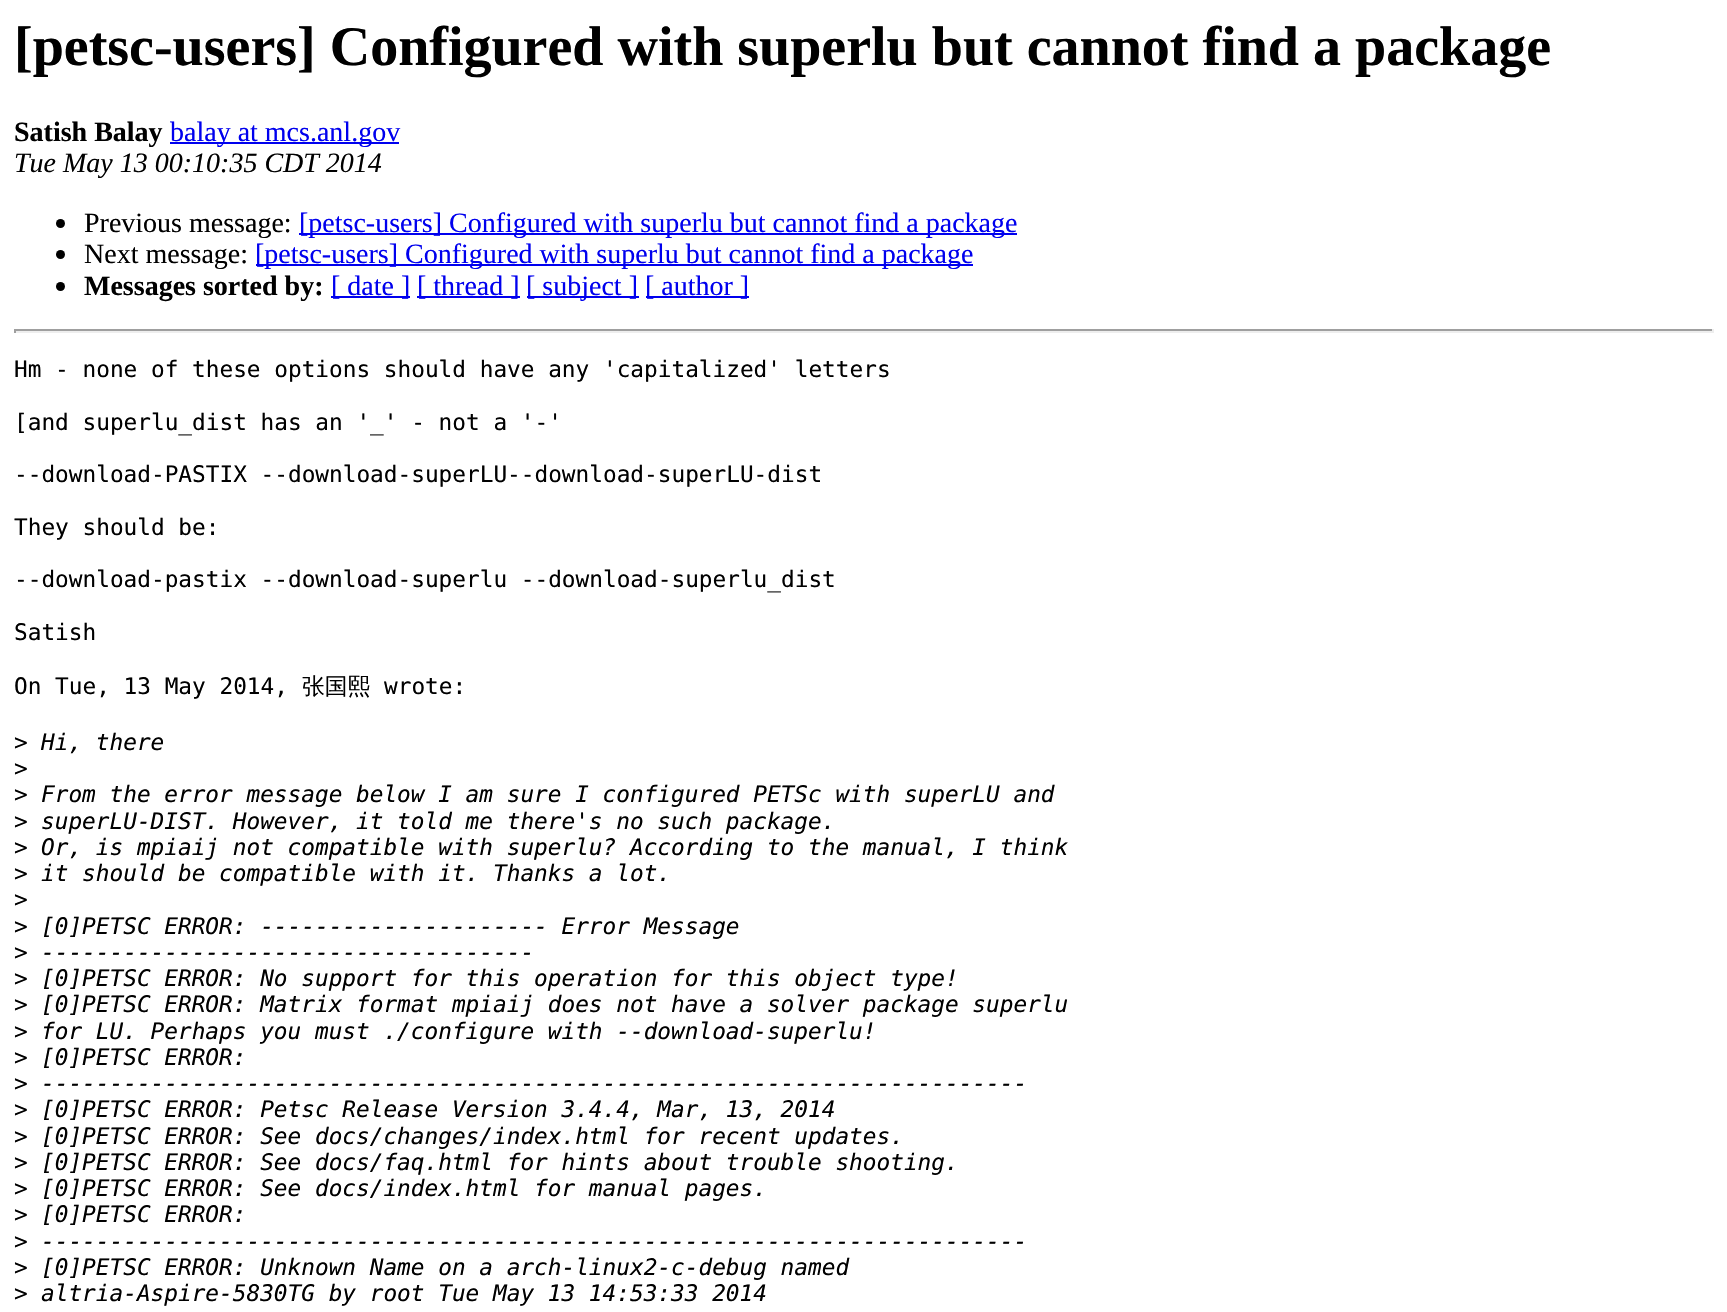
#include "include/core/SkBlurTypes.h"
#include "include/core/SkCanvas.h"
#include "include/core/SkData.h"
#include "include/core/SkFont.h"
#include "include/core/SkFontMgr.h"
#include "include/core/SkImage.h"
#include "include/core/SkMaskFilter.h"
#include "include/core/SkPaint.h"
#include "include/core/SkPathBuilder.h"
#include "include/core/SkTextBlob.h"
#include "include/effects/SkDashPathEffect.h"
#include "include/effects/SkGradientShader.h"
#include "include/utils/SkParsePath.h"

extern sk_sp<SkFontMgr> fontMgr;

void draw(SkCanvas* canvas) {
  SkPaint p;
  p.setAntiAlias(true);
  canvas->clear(SK_ColorWHITE);
  p.setColor(SkColorSetRGB(0, 0, 238));
  canvas->drawRect(SkRect::MakeLTRB(170, 142, 399, 144), p);
  p.setColor(SK_ColorBLACK);
  canvas->drawCircle(60.5f, 223.5f, 4.5f, p);
  p.setColor(SkColorSetRGB(0, 0, 238));
  canvas->drawRect(SkRect::MakeLTRB(299, 233, 1017, 235), p);
  p.setColor(SK_ColorBLACK);
  canvas->drawCircle(60.5f, 254.5f, 4.5f, p);
  p.setColor(SkColorSetRGB(0, 0, 238));
  canvas->drawRect(SkRect::MakeLTRB(256, 264, 973, 266), p);
  p.setColor(SK_ColorBLACK);
  canvas->drawCircle(60.5f, 286.5f, 4.5f, p);
  p.setColor(SkColorSetRGB(0, 0, 238));
  canvas->drawRect(SkRect::MakeLTRB(331, 296, 410, 298), p);
  canvas->drawRect(SkRect::MakeLTRB(417, 296, 520, 298), p);
  canvas->drawRect(SkRect::MakeLTRB(527, 296, 639, 298), p);
  canvas->drawRect(SkRect::MakeLTRB(646, 296, 749, 298), p);
  p.setColor(SkColorSetRGB(159, 159, 159));
  canvas->drawRect(SkRect::MakeLTRB(14, 329, 1713, 331), p);
  p.setColor(SkColorSetRGB(238, 238, 238));
  canvas->drawRect(SkRect::MakeLTRB(1712, 329, 1714, 333), p);
  canvas->drawRect(SkRect::MakeLTRB(14, 331, 1713, 333), p);
  p.setColor(SkColorSetRGB(159, 159, 159));
  canvas->drawRect(SkRect::MakeLTRB(14, 329, 16, 333), p);
  SkFont font1(fontMgr->matchFamilyStyle("Liberation Serif", SkFontStyle::Bold()), 56);
  font1.setSubpixel(true);
  p.setColor(SK_ColorBLACK);
  canvas->drawString("[petsc-users] Configured with superlu but cannot find a package", 14, 65, font1, p);
  SkFont font2(fontMgr->matchFamilyStyle("Liberation Serif", SkFontStyle::Bold()), 28);
  font2.setSubpixel(true);
  canvas->drawString("Satish Balay", 14, 141, font2, p);
  SkFont font3(fontMgr->matchFamilyStyle("Liberation Serif", SkFontStyle::Normal()), 28);
  font3.setSubpixel(true);
  p.setColor(SkColorSetRGB(0, 0, 238));
  canvas->drawString("balay at mcs.anl.gov", 170, 141, font3, p);
  SkFont font4(fontMgr->matchFamilyStyle("Liberation Serif", SkFontStyle::Italic()), 28);
  font4.setSubpixel(true);
  p.setColor(SK_ColorBLACK);
  canvas->drawString("Tue May 13 00:10:35 CDT 2014", 14, 172, font4, p);
  canvas->drawString("Previous message:", 84, 232, font3, p);
  p.setColor(SkColorSetRGB(0, 0, 238));
  canvas->drawString("[petsc-users] Configured with superlu but cannot find a package", 299, 232, font3, p);
  p.setColor(SK_ColorBLACK);
  canvas->drawString("Next message:", 84, 263, font3, p);
  p.setColor(SkColorSetRGB(0, 0, 238));
  canvas->drawString("[petsc-users] Configured with superlu but cannot find a package", 255, 263, font3, p);
  p.setColor(SK_ColorBLACK);
  canvas->drawString("Messages sorted by:", 84, 295, font2, p);
  p.setColor(SkColorSetRGB(0, 0, 238));
  canvas->drawString("[ date ]", 331, 295, font3, p);
  canvas->drawString("[ thread ]", 417, 295, font3, p);
  canvas->drawString("[ subject ]", 526, 295, font3, p);
  canvas->drawString("[ author ]", 645, 295, font3, p);
  SkFont font5(fontMgr->matchFamilyStyle("DejaVu Sans Mono", SkFontStyle::Normal()), 22.75f);
  font5.setSubpixel(true);
  p.setColor(SK_ColorBLACK);
  canvas->drawString("Hm - none of these options should have any 'capitalized' letters", 14, 377, font5, p);
  canvas->drawString("[and superlu_dist has an '_' - not a '-'", 14, 430, font5, p);
  canvas->drawString("--download-PASTIX --download-superLU--download-superLU-dist", 14, 482, font5, p);
  canvas->drawString("They should be:", 14, 535, font5, p);
  canvas->drawString("--download-pastix --download-superlu --download-superlu_dist", 14, 587, font5, p);
  canvas->drawString("Satish", 14, 640, font5, p);
  canvas->drawString("On Tue, 13 May 2014,", 14, 694, font5, p);
  SkFont font6(fontMgr->matchFamilyStyle("WenQuanYi Zen Hei", SkFontStyle(500, SkFontStyle::kNormal_Width, SkFontStyle::kUpright_Slant)), 22.75f);
  font6.setSubpixel(true);
  canvas->drawString("张国熙", 302, 694, font6, p);
  canvas->drawString("wrote:", 384, 694, font5, p);
  canvas->drawString(">", 14, 750, font5, p);
  SkFont font7(fontMgr->matchFamilyStyle("DejaVu Sans Mono", SkFontStyle::Italic()), 22.75f);
  font7.setSubpixel(true);
  canvas->drawString("Hi, there", 41, 750, font7, p);
  canvas->drawString(">", 14, 776, font5, p);
  canvas->drawString(">", 14, 802, font5, p);
  canvas->drawString("From the error message below I am sure I configured PETSc with superLU and", 41, 802, font7, p);
  canvas->drawString(">", 14, 829, font5, p);
  canvas->drawString("superLU-DIST. However, it told me there's no such package.", 41, 829, font7, p);
  canvas->drawString(">", 14, 855, font5, p);
  canvas->drawString("Or, is mpiaij not compatible with superlu? According to the manual, I think", 41, 855, font7, p);
  canvas->drawString(">", 14, 881, font5, p);
  canvas->drawString("it should be compatible with it. Thanks a lot.", 41, 881, font7, p);
  canvas->drawString(">", 14, 907, font5, p);
  canvas->drawString(">", 14, 934, font5, p);
  canvas->drawString("[0]PETSC ERROR: --------------------- Error Message", 41, 934, font7, p);
  canvas->drawString(">", 14, 960, font5, p);
  canvas->drawString("------------------------------------", 41, 960, font7, p);
  canvas->drawString(">", 14, 986, font5, p);
  canvas->drawString("[0]PETSC ERROR: No support for this operation for this object type!", 41, 986, font7, p);
  canvas->drawString(">", 14, 1012, font5, p);
  canvas->drawString("[0]PETSC ERROR: Matrix format mpiaij does not have a solver package superlu", 41, 1012, font7, p);
  canvas->drawString(">", 14, 1039, font5, p);
  canvas->drawString("for LU. Perhaps you must ./configure with --download-superlu!", 41, 1039, font7, p);
  canvas->drawString(">", 14, 1065, font5, p);
  canvas->drawString("[0]PETSC ERROR:", 41, 1065, font7, p);
  canvas->drawString(">", 14, 1091, font5, p);
  canvas->drawString("------------------------------------------------------------------------", 41, 1091, font7, p);
  canvas->drawString(">", 14, 1117, font5, p);
  canvas->drawString("[0]PETSC ERROR: Petsc Release Version 3.4.4, Mar, 13, 2014", 41, 1117, font7, p);
  canvas->drawString(">", 14, 1144, font5, p);
  canvas->drawString("[0]PETSC ERROR: See docs/changes/index.html for recent updates.", 41, 1144, font7, p);
  canvas->drawString(">", 14, 1170, font5, p);
  canvas->drawString("[0]PETSC ERROR: See docs/faq.html for hints about trouble shooting.", 41, 1170, font7, p);
  canvas->drawString(">", 14, 1196, font5, p);
  canvas->drawString("[0]PETSC ERROR: See docs/index.html for manual pages.", 41, 1196, font7, p);
  canvas->drawString(">", 14, 1222, font5, p);
  canvas->drawString("[0]PETSC ERROR:", 41, 1222, font7, p);
  canvas->drawString(">", 14, 1249, font5, p);
  canvas->drawString("------------------------------------------------------------------------", 41, 1249, font7, p);
  canvas->drawString(">", 14, 1275, font5, p);
  canvas->drawString("[0]PETSC ERROR: Unknown Name on a arch-linux2-c-debug named", 41, 1275, font7, p);
  canvas->drawString(">", 14, 1301, font5, p);
  canvas->drawString("altria-Aspire-5830TG by root Tue May 13 14:53:33 2014", 41, 1301, font7, p);
}
